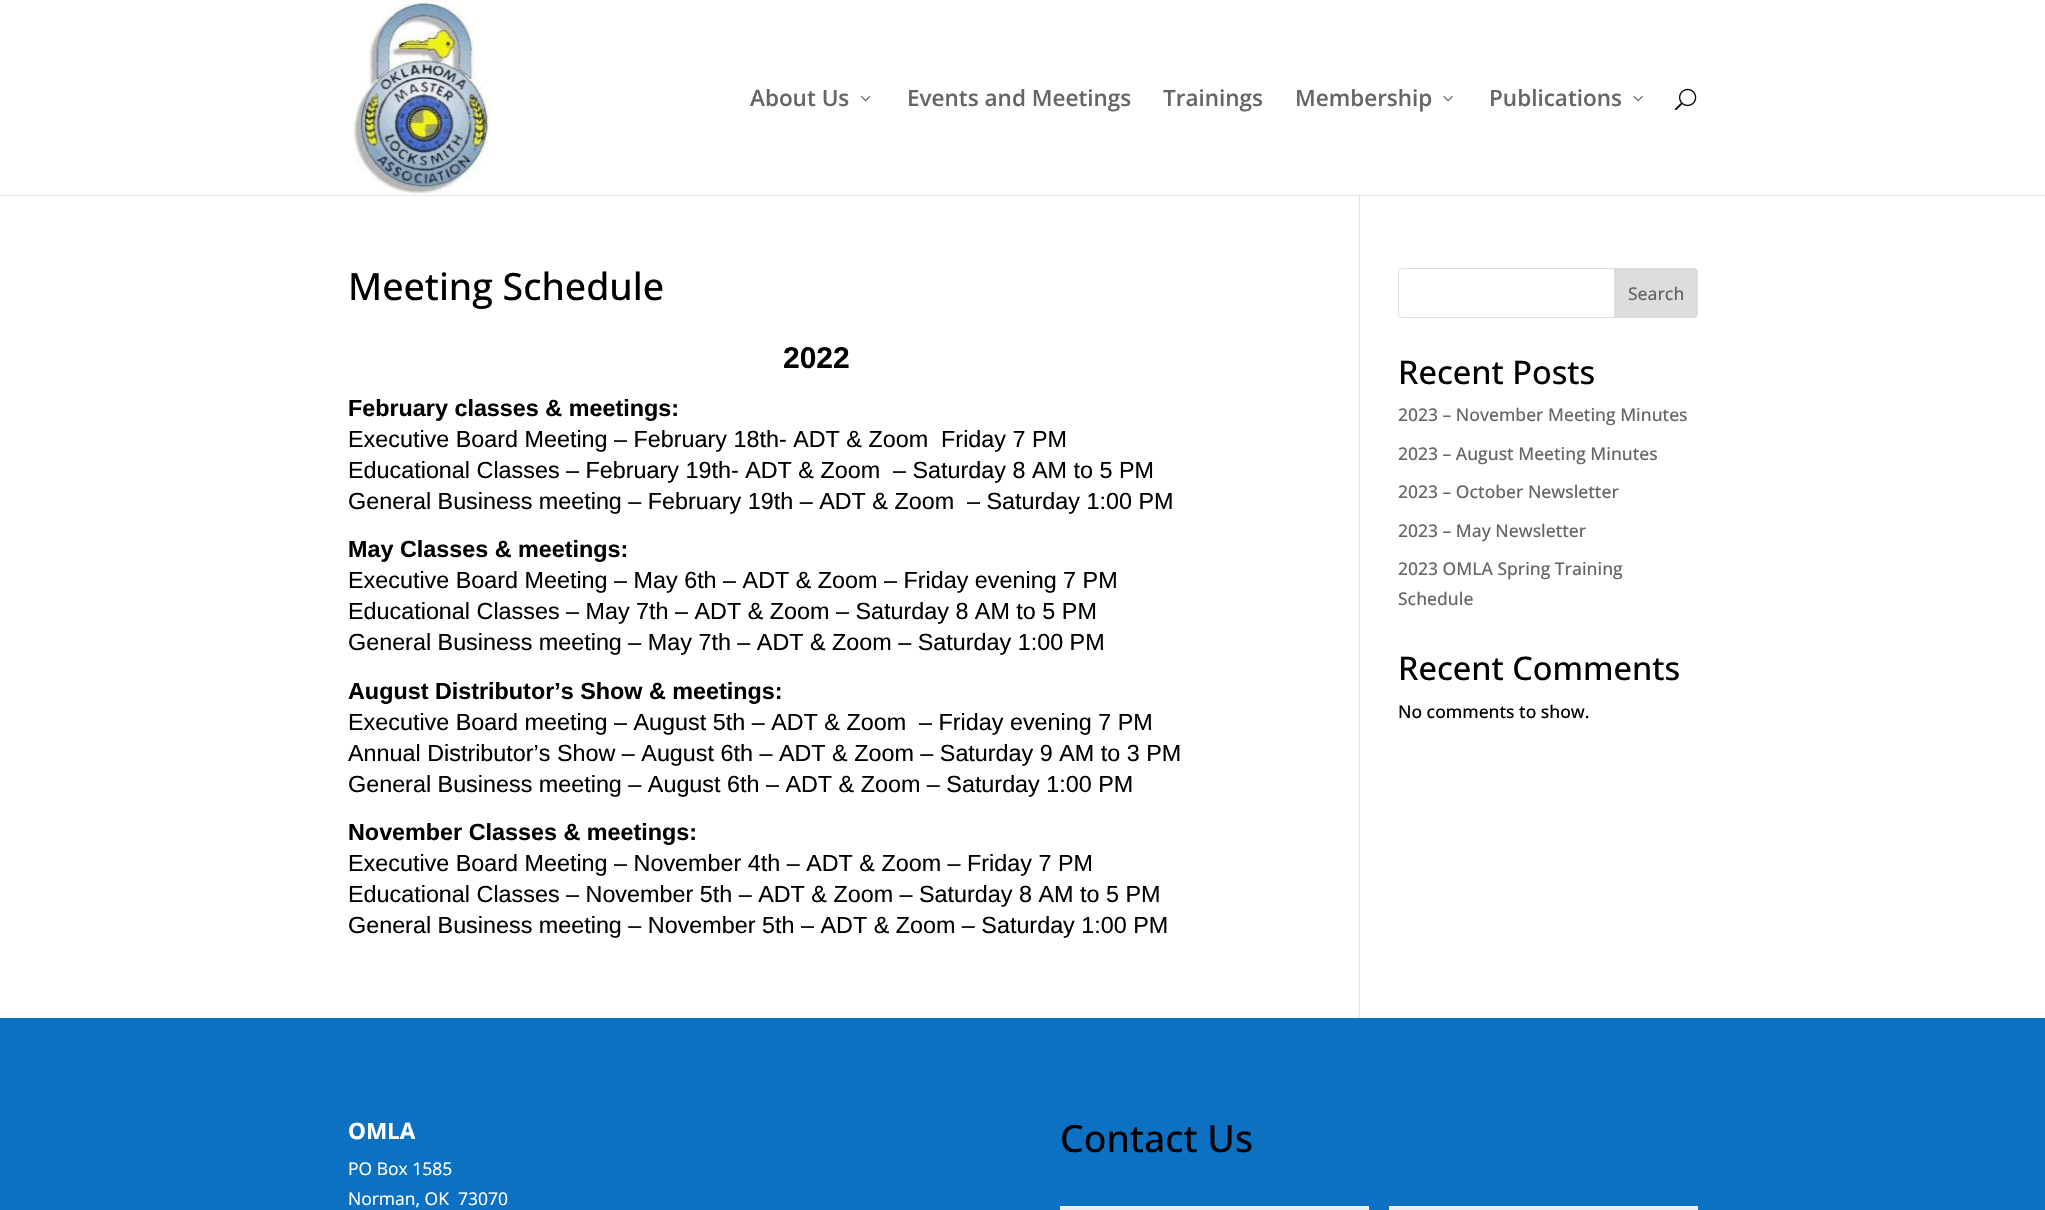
#include "include/core/SkBlurTypes.h"
#include "include/core/SkCanvas.h"
#include "include/core/SkData.h"
#include "include/core/SkFont.h"
#include "include/core/SkFontMgr.h"
#include "include/core/SkImage.h"
#include "include/core/SkMaskFilter.h"
#include "include/core/SkPaint.h"
#include "include/core/SkPathBuilder.h"
#include "include/core/SkTextBlob.h"
#include "include/effects/SkDashPathEffect.h"
#include "include/effects/SkGradientShader.h"
#include "include/utils/SkParsePath.h"

extern sk_sp<SkFontMgr> fontMgr;

void draw(SkCanvas* canvas) {
  SkPaint p;
  p.setAntiAlias(true);
  canvas->clear(SK_ColorWHITE);
  p.setColor(SkColorSetRGB(230, 230, 230));
  canvas->drawRect(SkRect::MakeLTRB(0, 195, 2045, 196), p);
  canvas->drawImageRect(SkImages::DeferredFromEncodedData(SkData::MakeFromFileName("images/1.png")), SkRect::MakeLTRB(352, 0, 490, 194), SkSamplingOptions());
  canvas->drawImageRect(SkImages::DeferredFromEncodedData(SkData::MakeFromFileName("images/2.png")), SkRect::MakeLTRB(861, 96, 871, 102), SkSamplingOptions());
  canvas->drawImageRect(SkImages::DeferredFromEncodedData(SkData::MakeFromFileName("images/3.png")), SkRect::MakeLTRB(1443, 96, 1453, 102), SkSamplingOptions());
  canvas->drawImageRect(SkImages::DeferredFromEncodedData(SkData::MakeFromFileName("images/3.png")), SkRect::MakeLTRB(1633, 96, 1643, 102), SkSamplingOptions());
  canvas->drawImageRect(SkImages::DeferredFromEncodedData(SkData::MakeFromFileName("images/4.png")), SkRect::MakeLTRB(1675, 88, 1697, 111), SkSamplingOptions());
  p.setColor(SkColorSetRGB(226, 226, 226));
  canvas->drawRect(SkRect::MakeLTRB(1359, 195, 1360, 1018), p);
  p.setColor(SkColorSetRGB(203, 203, 203));
  canvas->drawRect(SkRect::MakeLTRB(1359, 195, 1360, 196), p);
  p.setStyle(SkPaint::kStroke_Style);
  p.setStrokeWidth(1);
  p.setColor(SkColorSetRGB(221, 221, 221));
  canvas->drawRoundRect(SkRect::MakeLTRB(1398.5f, 268.5f, 1697.5f, 317.5f), 3.5f, 3.5f, p);
  p.setStyle(SkPaint::kFill_Style);
  canvas->drawPath(SkPathBuilder().moveTo(1614.5f, 268.5f).lineTo(1694, 268.5f).cubicTo(1696, 268.5f, 1697.5f, 270, 1697.5f, 272).lineTo(1697.5f, 314).cubicTo(1697.5f, 316, 1696, 317.5f, 1694, 317.5f).lineTo(1614.5f, 317.5f).close().detach(), p);
  p.setStyle(SkPaint::kStroke_Style);
  canvas->drawPath(SkPathBuilder().moveTo(1614.5f, 268.5f).lineTo(1694, 268.5f).cubicTo(1696, 268.5f, 1697.5f, 270, 1697.5f, 272).lineTo(1697.5f, 314).cubicTo(1697.5f, 316, 1696, 317.5f, 1694, 317.5f).lineTo(1614.5f, 317.5f).close().detach(), p);
  p.setStyle(SkPaint::kFill_Style);
  p.setColor(SkColorSetRGB(12, 113, 195));
  canvas->drawRect(SkRect::MakeLTRB(0, 1018, 2045, 1210), p);
  p.setColor(SkColorSetRGB(238, 238, 238));
  canvas->drawRect(SkRect::MakeLTRB(1060, 1206, 1369, 1210), p);
  canvas->drawRect(SkRect::MakeLTRB(1389, 1206, 1698, 1210), p);
  SkFont font1(fontMgr->matchFamilyStyle("Open Sans", SkFontStyle(600, SkFontStyle::kNormal_Width, SkFontStyle::kUpright_Slant)), 22.5f);
  font1.setSubpixel(true);
  p.setColor(SkColorSetRGB(102, 102, 102));
  canvas->drawString("About Us", 750, 106, font1, p);
  canvas->drawString("Events and Meetings", 907, 106, font1, p);
  canvas->drawString("Trainings", 1163, 106, font1, p);
  canvas->drawString("Membership", 1295, 106, font1, p);
  canvas->drawString("Publications", 1489, 106, font1, p);
  SkFont font2(fontMgr->matchFamilyStyle("Open Sans", SkFontStyle(500, SkFontStyle::kNormal_Width, SkFontStyle::kUpright_Slant)), 37.5f);
  font2.setSubpixel(true);
  p.setColor(SK_ColorBLACK);
  canvas->drawString("Meeting Schedule", 348, 300, font2, p);
  SkFont font3(fontMgr->matchFamilyStyle("Liberation Sans", SkFontStyle::Bold()), 30);
  font3.setSubpixel(true);
  canvas->drawString("2022", 783, 368, font3, p);
  SkFont font4(fontMgr->matchFamilyStyle("Liberation Sans", SkFontStyle::Bold()), 23.35f);
  font4.setSubpixel(true);
  canvas->drawString("February classes & meetings:", 348, 416, font4, p);
  SkFont font5(fontMgr->matchFamilyStyle("Liberation Sans", SkFontStyle::Normal()), 23.35f);
  font5.setSubpixel(true);
  canvas->drawString("Executive Board Meeting – February 18th- ADT & Zoom  Friday 7 PM", 348, 447, font5, p);
  canvas->drawString("Educational Classes – February 19th- ADT & Zoom  – Saturday 8 AM to 5 PM", 348, 478, font5, p);
  canvas->drawString("General Business meeting – February 19th – ADT & Zoom  – Saturday 1:00 PM", 348, 509, font5, p);
  canvas->drawString("May Classes & meetings:", 348, 557, font4, p);
  canvas->drawString("Executive Board Meeting – May 6th – ADT & Zoom – Friday evening 7 PM", 348, 588, font5, p);
  canvas->drawString("Educational Classes – May 7th – ADT & Zoom – Saturday 8 AM to 5 PM", 348, 619, font5, p);
  canvas->drawString("General Business meeting – May 7th – ADT & Zoom – Saturday 1:00 PM", 348, 650, font5, p);
  canvas->drawString("August Distributor’s Show & meetings:", 348, 699, font4, p);
  canvas->drawString("Executive Board meeting – August 5th – ADT & Zoom  – Friday evening 7 PM", 348, 730, font5, p);
  canvas->drawString("Annual Distributor’s Show – August 6th – ADT & Zoom – Saturday 9 AM to 3 PM", 348, 761, font5, p);
  canvas->drawString("General Business meeting – August 6th – ADT & Zoom – Saturday 1:00 PM", 348, 792, font5, p);
  canvas->drawString("November Classes & meetings:", 348, 840, font4, p);
  canvas->drawString("Executive Board Meeting – November 4th – ADT & Zoom – Friday 7 PM", 348, 871, font5, p);
  canvas->drawString("Educational Classes – November 5th – ADT & Zoom – Saturday 8 AM to 5 PM", 348, 902, font5, p);
  canvas->drawString("General Business meeting – November 5th – ADT & Zoom – Saturday 1:00 PM", 348, 933, font5, p);
  SkFont font6(fontMgr->matchFamilyStyle("Open Sans", SkFontStyle(500, SkFontStyle::kNormal_Width, SkFontStyle::kUpright_Slant)), 17.5f);
  font6.setSubpixel(true);
  p.setColor(SkColorSetRGB(102, 102, 102));
  canvas->drawString("Search", 1628, 300, font6, p);
  SkFont font7(fontMgr->matchFamilyStyle("Open Sans", SkFontStyle(500, SkFontStyle::kNormal_Width, SkFontStyle::kUpright_Slant)), 32.5f);
  font7.setSubpixel(true);
  p.setColor(SK_ColorBLACK);
  canvas->drawString("Recent Posts", 1398, 384, font7, p);
  p.setColor(SkColorSetRGB(102, 102, 102));
  canvas->drawString("2023 – November Meeting Minutes", 1398, 421, font6, p);
  canvas->drawString("2023 – August Meeting Minutes", 1398, 460, font6, p);
  canvas->drawString("2023 – October Newsletter", 1398, 498, font6, p);
  canvas->drawString("2023 – May Newsletter", 1398, 537, font6, p);
  canvas->drawString("2023 OMLA Spring Training", 1398, 575, font6, p);
  canvas->drawString("Schedule", 1398, 605, font6, p);
  p.setColor(SK_ColorBLACK);
  canvas->drawString("Recent Comments", 1398, 680, font7, p);
  canvas->drawString("No comments to show.", 1398, 718, font6, p);
  SkFont font8(fontMgr->matchFamilyStyle("Open Sans", SkFontStyle::Bold()), 22.5f);
  font8.setSubpixel(true);
  p.setColor(SK_ColorWHITE);
  canvas->drawString("OMLA", 348, 1139, font8, p);
  SkFont font9(fontMgr->matchFamilyStyle("Open Sans", SkFontStyle::Normal()), 17.5f);
  font9.setSubpixel(true);
  canvas->drawString("PO Box 1585", 348, 1175, font9, p);
  canvas->drawString("Norman, OK  73070", 348, 1205, font9, p);
  p.setColor(SK_ColorBLACK);
  canvas->drawString("Contact Us", 1060, 1152, font2, p);
}
